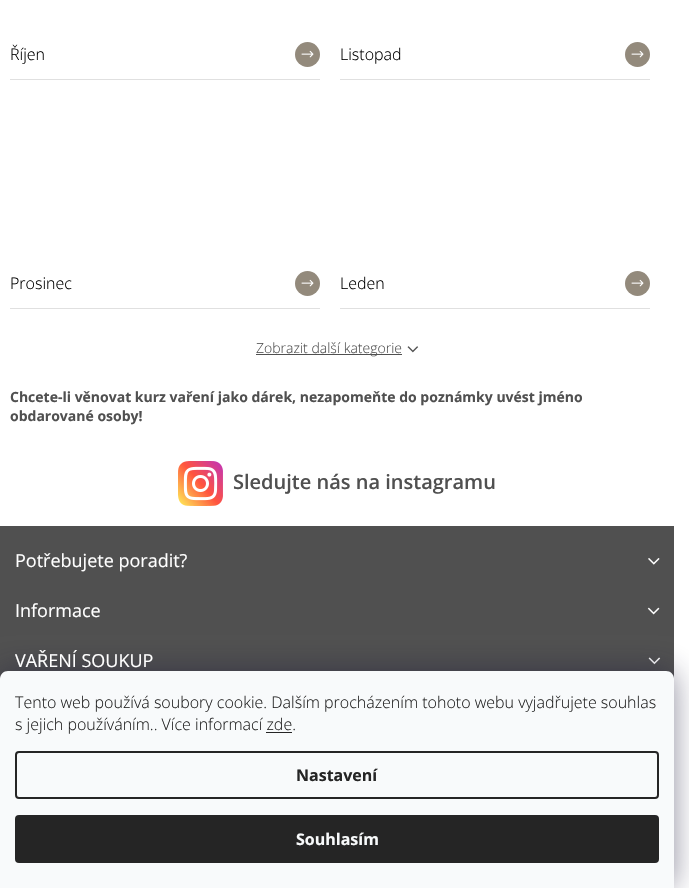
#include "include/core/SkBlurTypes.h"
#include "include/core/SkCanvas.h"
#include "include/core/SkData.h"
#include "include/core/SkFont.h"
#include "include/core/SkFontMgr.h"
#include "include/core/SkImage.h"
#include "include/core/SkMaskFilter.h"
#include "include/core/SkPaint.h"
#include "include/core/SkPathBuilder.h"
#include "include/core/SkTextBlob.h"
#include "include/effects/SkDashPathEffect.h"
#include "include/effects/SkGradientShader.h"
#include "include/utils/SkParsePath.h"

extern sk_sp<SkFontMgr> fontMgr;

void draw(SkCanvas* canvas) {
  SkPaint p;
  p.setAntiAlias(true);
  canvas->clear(SK_ColorWHITE);
  p.setColor(SkColorSetRGB(224, 224, 224));
  canvas->drawRect(SkRect::MakeLTRB(10, 79, 320, 80), p);
  p.setColor(SkColorSetRGB(147, 138, 124));
  canvas->drawCircle(307.5f, 54.5f, 12.5f, p);
  canvas->drawImageRect(SkImages::DeferredFromEncodedData(SkData::MakeFromFileName("images/1.png")), SkRect::MakeLTRB(301, 50, 314, 58), SkSamplingOptions());
  p.setColor(SkColorSetRGB(224, 224, 224));
  canvas->drawRect(SkRect::MakeLTRB(340, 79, 650, 80), p);
  p.setColor(SkColorSetRGB(147, 138, 124));
  canvas->drawCircle(637.5f, 54.5f, 12.5f, p);
  canvas->drawImageRect(SkImages::DeferredFromEncodedData(SkData::MakeFromFileName("images/1.png")), SkRect::MakeLTRB(631, 50, 644, 58), SkSamplingOptions());
  p.setColor(SkColorSetRGB(224, 224, 224));
  canvas->drawRect(SkRect::MakeLTRB(10, 308, 320, 309), p);
  p.setColor(SkColorSetRGB(147, 138, 124));
  canvas->drawCircle(307.5f, 283.5f, 12.5f, p);
  canvas->drawImageRect(SkImages::DeferredFromEncodedData(SkData::MakeFromFileName("images/1.png")), SkRect::MakeLTRB(301, 279, 314, 287), SkSamplingOptions());
  p.setColor(SkColorSetRGB(224, 224, 224));
  canvas->drawRect(SkRect::MakeLTRB(340, 308, 650, 309), p);
  p.setColor(SkColorSetRGB(147, 138, 124));
  canvas->drawCircle(637.5f, 283.5f, 12.5f, p);
  canvas->drawImageRect(SkImages::DeferredFromEncodedData(SkData::MakeFromFileName("images/1.png")), SkRect::MakeLTRB(631, 279, 644, 287), SkSamplingOptions());
  p.setColor(SkColorSetRGB(80, 80, 80));
  canvas->drawRect(SkRect::MakeLTRB(256, 354, 402, 355), p);
  canvas->drawImageRect(SkImages::DeferredFromEncodedData(SkData::MakeFromFileName("images/2.png")), SkRect::MakeLTRB(407, 346, 419, 353), SkSamplingOptions());
  canvas->drawImageRect(SkImages::DeferredFromEncodedData(SkData::MakeFromFileName("images/3.png")), SkRect::MakeLTRB(178, 461, 223, 506), SkSamplingOptions());
  canvas->drawRect(SkRect::MakeLTRB(0, 526, 674, 679), p);
  canvas->drawImageRect(SkImages::DeferredFromEncodedData(SkData::MakeFromFileName("images/4.png")), SkRect::MakeLTRB(648, 558, 660, 565), SkSamplingOptions());
  canvas->drawImageRect(SkImages::DeferredFromEncodedData(SkData::MakeFromFileName("images/5.png")), SkRect::MakeLTRB(647, 607, 660, 615), SkSamplingOptions());
  canvas->drawImageRect(SkImages::DeferredFromEncodedData(SkData::MakeFromFileName("images/6.png")), SkRect::MakeLTRB(648, 657, 661, 665), SkSamplingOptions());
  p.setColor(SkColorSetARGB(128, 27, 25, 57));
  p.setMaskFilter(SkMaskFilter::MakeBlur(kNormal_SkBlurStyle, 15));
  canvas->drawRoundRect(SkRect::MakeLTRB(0, 671, 674, 888), 8, 8, p);
  p.setMaskFilter(nullptr);
  p.setColor(SkColorSetRGB(248, 250, 251));
  canvas->drawPath(SkPathBuilder().moveTo(8, 671).lineTo(666, 671).cubicTo(670.5f, 671, 674, 674.5f, 674, 679).lineTo(674, 888).lineTo(0, 888).lineTo(0, 679).cubicTo(0, 674.5f, 3.5f, 671, 8, 671).close().detach(), p);
  p.setColor(SkColorSetRGB(37, 37, 37));
  canvas->drawRect(SkRect::MakeLTRB(266, 732, 292, 733), p);
  p.setStyle(SkPaint::kStroke_Style);
  p.setStrokeWidth(2);
  canvas->drawRoundRect(SkRect::MakeLTRB(16, 752, 658, 798), 3, 3, p);
  p.setStyle(SkPaint::kFill_Style);
  canvas->drawRoundRect(SkRect::MakeLTRB(15, 815, 659, 863), 4, 4, p);
  SkFont font1(fontMgr->matchFamilyStyle("Open Sans", SkFontStyle(300, SkFontStyle::kNormal_Width, SkFontStyle::kUpright_Slant)), 16);
  font1.setSubpixel(true);
  p.setColor(SK_ColorBLACK);
  canvas->drawString("Říjen", 10, 60, font1, p);
  canvas->drawString("Listopad", 340, 60, font1, p);
  canvas->drawString("Prosinec", 10, 289, font1, p);
  canvas->drawString("Leden", 340, 289, font1, p);
  SkFont font2(fontMgr->matchFamilyStyle("Open Sans", SkFontStyle(300, SkFontStyle::kNormal_Width, SkFontStyle::kUpright_Slant)), 14);
  font2.setSubpixel(true);
  p.setColor(SkColorSetRGB(80, 80, 80));
  canvas->drawString("Zobrazit další kategorie", 256, 353, font2, p);
  SkFont font3(fontMgr->matchFamilyStyle("Open Sans", SkFontStyle::Bold()), 14);
  font3.setSubpixel(true);
  canvas->drawString("Chcete-li věnovat kurz vaření jako dárek, nezapomeňte do poznámky uvést jméno", 10, 402, font3, p);
  canvas->drawString("obdarované osoby!", 10, 421, font3, p);
  SkFont font4(fontMgr->matchFamilyStyle("Open Sans", SkFontStyle(600, SkFontStyle::kNormal_Width, SkFontStyle::kUpright_Slant)), 20);
  font4.setSubpixel(true);
  canvas->drawString("Sledujte nás na instagramu", 233, 489, font4, p);
  SkFont font5(fontMgr->matchFamilyStyle("Open Sans", SkFontStyle::Normal()), 18);
  font5.setSubpixel(true);
  p.setColor(SK_ColorWHITE);
  canvas->drawString("Potřebujete poradit?", 15, 567, font5, p);
  canvas->drawString("Informace", 15, 617, font5, p);
  canvas->drawString("VAŘENÍ SOUKUP", 15, 667, font5, p);
  p.setColor(SkColorSetRGB(37, 37, 37));
  canvas->drawString("Tento web používá soubory cookie. Dalším procházením tohoto webu vyjadřujete souhlas", 15, 708, font1, p);
  canvas->drawString("s jejich používáním.. Více informací zde.", 15, 730, font1, p);
  SkFont font6(fontMgr->matchFamilyStyle("Open Sans", SkFontStyle::Bold()), 16);
  font6.setSubpixel(true);
  canvas->drawString("Nastavení", 296, 781, font6, p);
  p.setColor(SkColorSetRGB(248, 250, 251));
  canvas->drawString("Souhlasím", 296, 845, font6, p);
}
